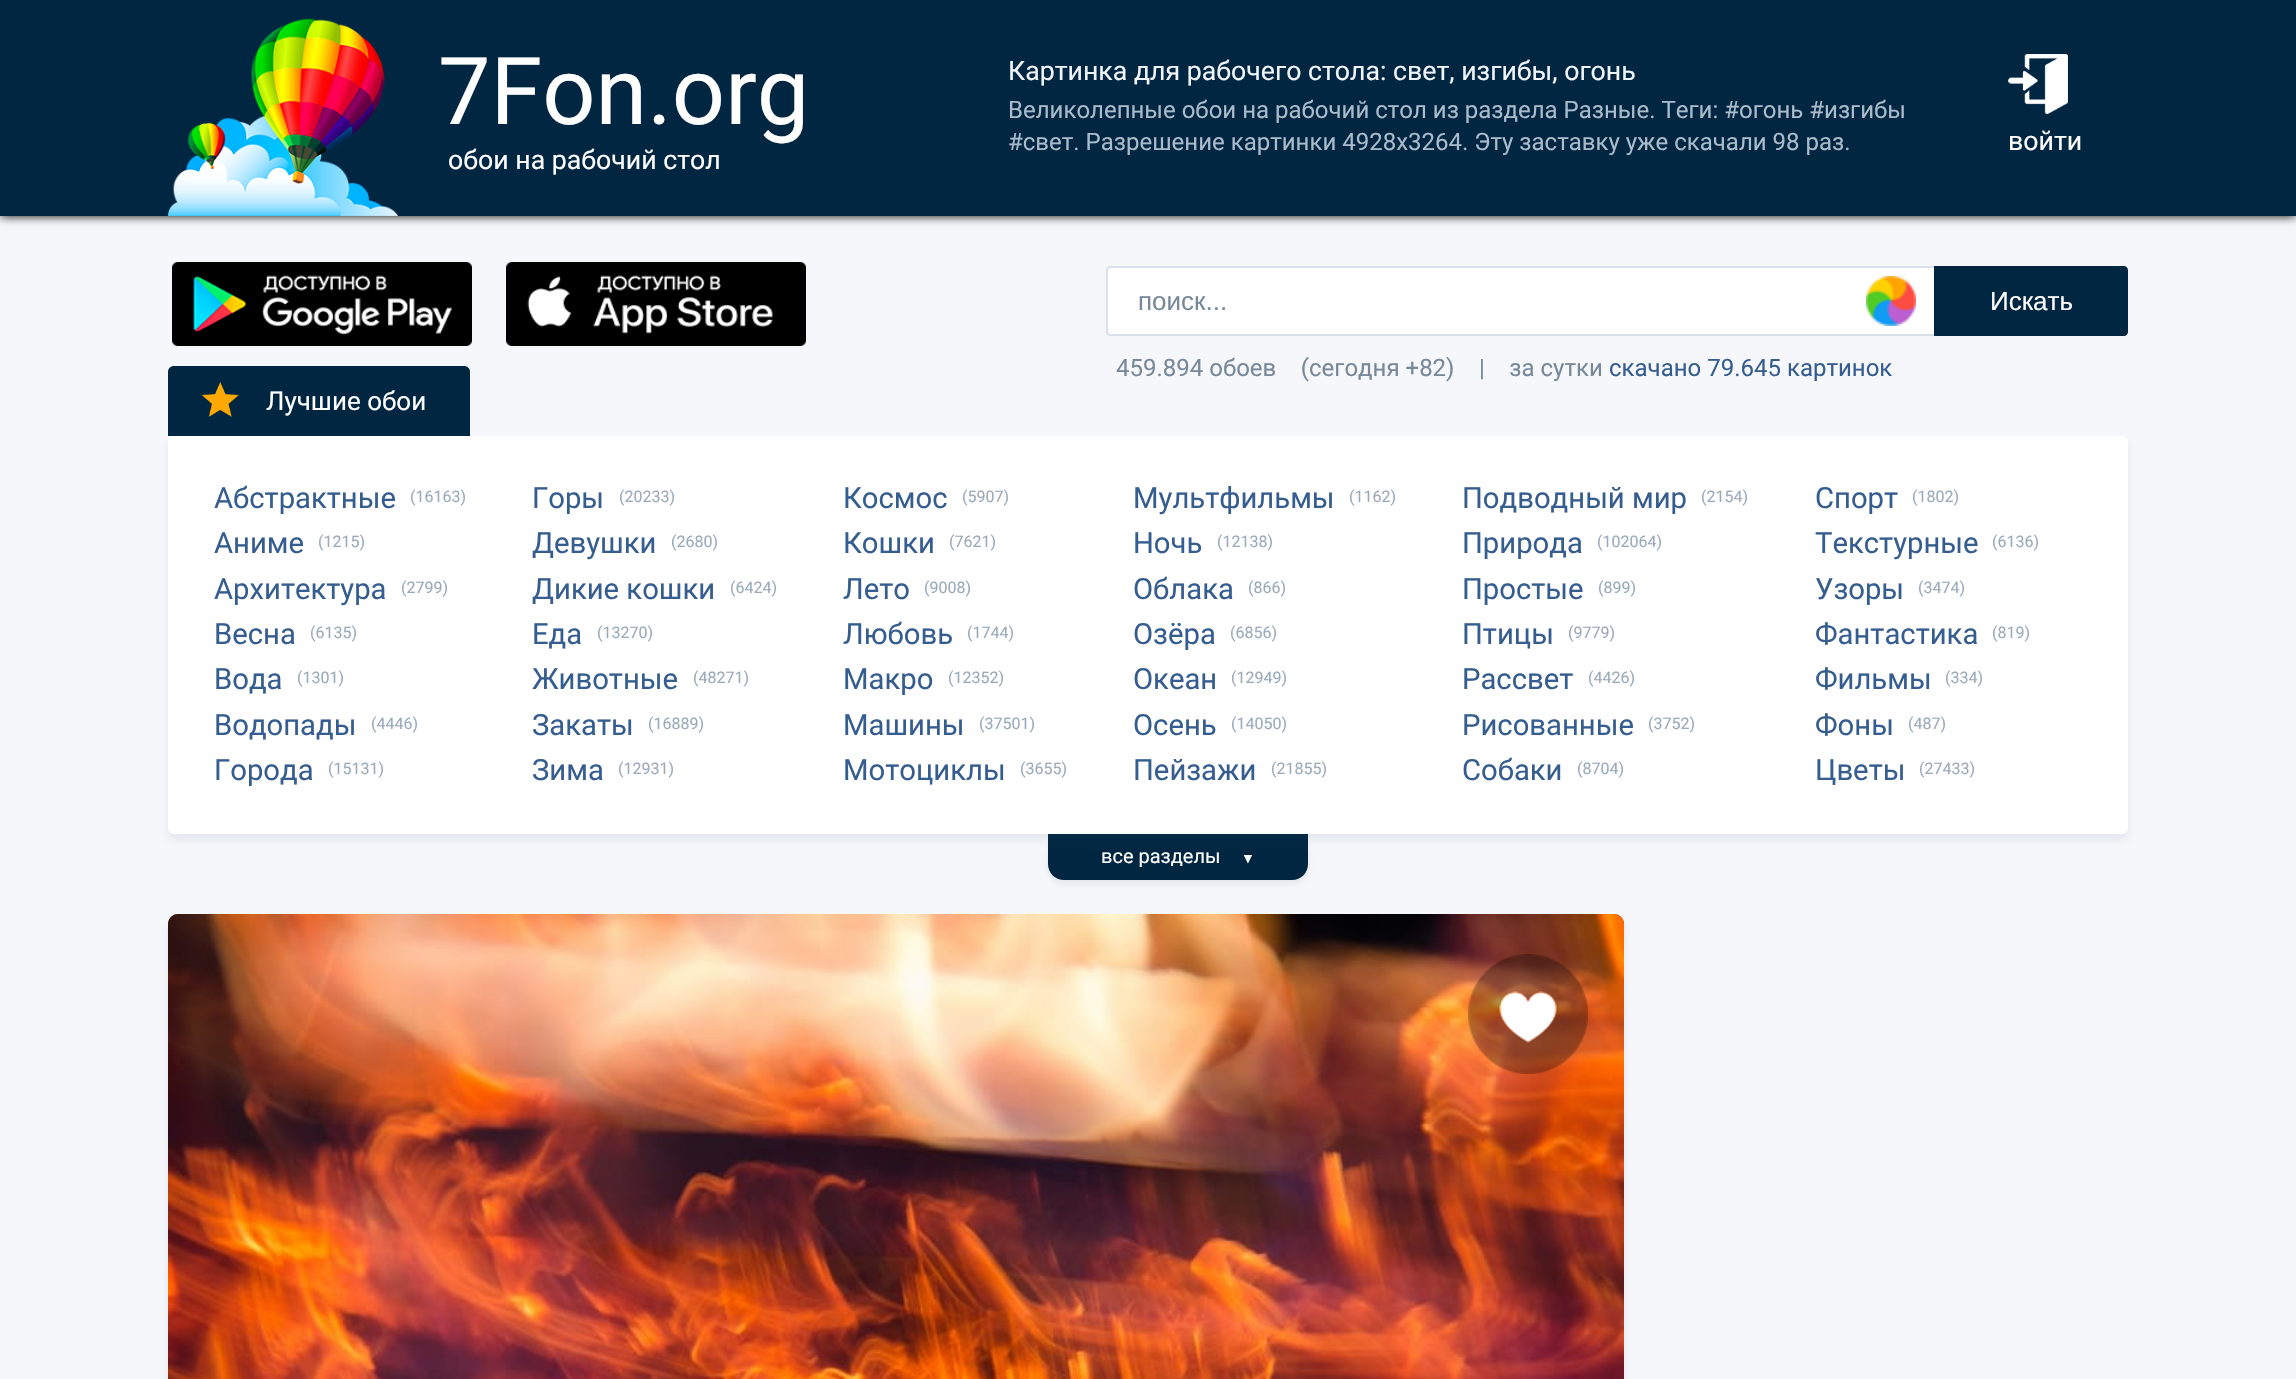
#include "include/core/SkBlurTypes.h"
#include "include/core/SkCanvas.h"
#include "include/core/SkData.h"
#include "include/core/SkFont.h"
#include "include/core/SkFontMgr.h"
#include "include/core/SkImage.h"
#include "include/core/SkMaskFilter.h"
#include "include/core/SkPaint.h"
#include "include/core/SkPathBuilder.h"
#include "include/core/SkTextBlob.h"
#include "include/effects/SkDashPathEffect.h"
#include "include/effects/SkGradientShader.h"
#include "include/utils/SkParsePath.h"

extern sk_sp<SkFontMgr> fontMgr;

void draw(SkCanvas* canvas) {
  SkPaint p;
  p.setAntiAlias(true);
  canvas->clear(SkColorSetRGB(246, 247, 251));
  p.setColor(SK_ColorBLACK);
  p.setMaskFilter(SkMaskFilter::MakeBlur(kNormal_SkBlurStyle, 5));
  canvas->drawRect(SkRect::MakeLTRB(0, 0, 2296, 216), p);
  p.setMaskFilter(nullptr);
  p.setColor(SkColorSetRGB(0, 38, 66));
  canvas->drawRect(SkRect::MakeLTRB(0, 0, 2296, 216), p);
  canvas->drawImageRect(SkImages::DeferredFromEncodedData(SkData::MakeFromFileName("images/1.png")), SkRect::MakeLTRB(168, 18, 398, 216), SkSamplingOptions());
  canvas->drawImageRect(SkImages::DeferredFromEncodedData(SkData::MakeFromFileName("images/2.png")), SkRect::MakeLTRB(2008, 54, 2068, 114), SkSamplingOptions());
  canvas->drawImageRect(SkImages::DeferredFromEncodedData(SkData::MakeFromFileName("images/3.png")), SkRect::MakeLTRB(172, 262, 472, 346), SkSamplingOptions());
  canvas->drawImageRect(SkImages::DeferredFromEncodedData(SkData::MakeFromFileName("images/4.png")), SkRect::MakeLTRB(506, 262, 806, 346), SkSamplingOptions());
  p.setColor(SK_ColorWHITE);
  canvas->drawPath(SkPathBuilder().moveTo(1110, 267).lineTo(1935, 267).lineTo(1935, 335).lineTo(1110, 335).cubicTo(1108.5f, 335, 1107, 333.5f, 1107, 332).lineTo(1107, 270).cubicTo(1107, 268.5f, 1108.5f, 267, 1110, 267).close().detach(), p);
  p.setStyle(SkPaint::kStroke_Style);
  p.setStrokeWidth(2);
  p.setColor(SkColorSetRGB(216, 225, 235));
  canvas->drawPath(SkPathBuilder().moveTo(1110, 267).lineTo(1935, 267).lineTo(1935, 335).lineTo(1110, 335).cubicTo(1108.5f, 335, 1107, 333.5f, 1107, 332).lineTo(1107, 270).cubicTo(1107, 268.5f, 1108.5f, 267, 1110, 267).close().detach(), p);
  canvas->drawImageRect(SkImages::DeferredFromEncodedData(SkData::MakeFromFileName("images/5.png")), SkRect::MakeLTRB(1866, 276, 1916, 326), SkSamplingOptions());
  p.setStyle(SkPaint::kFill_Style);
  p.setColor(SkColorSetRGB(0, 38, 66));
  canvas->drawPath(SkPathBuilder().moveTo(1934, 266).lineTo(2124, 266).cubicTo(2126, 266, 2128, 268, 2128, 270).lineTo(2128, 332).cubicTo(2128, 334, 2126, 336, 2124, 336).lineTo(1934, 336).close().detach(), p);
  canvas->drawPath(SkPathBuilder().moveTo(174, 366).lineTo(464, 366).cubicTo(467.5f, 366, 470, 368.5f, 470, 372).lineTo(470, 436).lineTo(168, 436).lineTo(168, 372).cubicTo(168, 368.5f, 170.5f, 366, 174, 366).close().detach(), p);
  canvas->drawImageRect(SkImages::DeferredFromEncodedData(SkData::MakeFromFileName("images/6.png")), SkRect::MakeLTRB(201, 382, 239, 417), SkSamplingOptions());
  p.setColor(SkColorSetARGB(26, 55, 80, 110));
  p.setMaskFilter(SkMaskFilter::MakeBlur(kNormal_SkBlurStyle, 3));
  canvas->drawRoundRect(SkRect::MakeLTRB(1048, 838, 1308, 884), 16, 16, p);
  p.setMaskFilter(nullptr);
  p.setColor(SkColorSetRGB(0, 38, 66));
  canvas->drawPath(SkPathBuilder().moveTo(1048, 834).lineTo(1308, 834).lineTo(1308, 864).cubicTo(1308, 873, 1301, 880, 1292, 880).lineTo(1064, 880).cubicTo(1055, 880, 1048, 873, 1048, 864).close().detach(), p);
  p.setColor(SkColorSetARGB(26, 55, 80, 110));
  p.setMaskFilter(SkMaskFilter::MakeBlur(kNormal_SkBlurStyle, 4));
  canvas->drawRoundRect(SkRect::MakeLTRB(168, 442, 2128, 840), 6, 6, p);
  p.setMaskFilter(nullptr);
  p.setColor(SK_ColorWHITE);
  canvas->drawRoundRect(SkRect::MakeLTRB(168, 436, 2128, 834), 6, 6, p);
  p.setColor(SkColorSetARGB(26, 55, 80, 110));
  p.setMaskFilter(SkMaskFilter::MakeBlur(kNormal_SkBlurStyle, 4));
  canvas->drawRoundRect(SkRect::MakeLTRB(168, 922, 1624, 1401), 10, 10, p);
  p.setMaskFilter(nullptr);
  canvas->drawImageRect(SkImages::DeferredFromEncodedData(SkData::MakeFromFileName("images/7.png")), SkRect::MakeLTRB(168, 914, 1624, 924), SkSamplingOptions());
  p.setColor(SkColorSetRGB(143, 64, 37));
  canvas->drawPath(SkPathBuilder().moveTo(178, 914).lineTo(1614, 914).cubicTo(1619.5f, 914, 1624, 918.5f, 1624, 924).lineTo(1624, 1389).lineTo(168, 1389).lineTo(168, 924).cubicTo(168, 918.5f, 172.5f, 914, 178, 914).close().detach(), p);
  canvas->drawImageRect(SkImages::DeferredFromEncodedData(SkData::MakeFromFileName("images/8.png")), SkRect::MakeLTRB(168, 914, 1624, 1379), SkSamplingOptions());
  canvas->drawImageRect(SkImages::DeferredFromEncodedData(SkData::MakeFromFileName("images/9.png")), SkRect::MakeLTRB(1468, 954, 1588, 1074), SkSamplingOptions());
  SkFont font1(fontMgr->matchFamilyStyle("Roboto", SkFontStyle::Normal()), 93.5f);
  font1.setSubpixel(true);
  p.setColor(SK_ColorWHITE);
  canvas->drawString("7Fon.org", 438, 124, font1, p);
  SkFont font2(fontMgr->matchFamilyStyle("Roboto", SkFontStyle::Normal()), 26.7f);
  font2.setSubpixel(true);
  canvas->drawString("обои на рабочий стол", 448, 169, font2, p);
  p.setColor(SkColorSetRGB(240, 245, 249));
  canvas->drawString("Картинка для рабочего стола: свет, изгибы, огонь", 1008, 80, font2, p);
  SkFont font3(fontMgr->matchFamilyStyle("Roboto", SkFontStyle::Normal()), 24);
  font3.setSubpixel(true);
  p.setColor(SkColorSetRGB(170, 187, 204));
  canvas->drawString("Великолепные обои на рабочий стол из раздела Разные. Теги: #огонь #изгибы", 1008, 118, font3, p);
  canvas->drawString("#свет. Разрешение картинки 4928x3264. Эту заставку уже скачали 98 раз.", 1008, 150, font3, p);
  p.setColor(SK_ColorWHITE);
  canvas->drawString("войти", 2008, 150, font2, p);
  SkFont font4(fontMgr->matchFamilyStyle("Liberation Sans", SkFontStyle::Normal()), 26);
  font4.setSubpixel(true);
  p.setColor(SkColorSetRGB(119, 136, 153));
  canvas->drawString("поиск...", 1138, 310, font4, p);
  p.setColor(SK_ColorWHITE);
  canvas->drawString("Искать", 1990, 310, font4, p);
  p.setColor(SkColorSetRGB(119, 136, 153));
  canvas->drawString("459.894 обоев (сегодня +82) | за сутки", 1116, 376, font3, p);
  p.setColor(SkColorSetRGB(53, 93, 143));
  canvas->drawString("скачано 79.645 картинок", 1609, 376, font3, p);
  SkFont font5(fontMgr->matchFamilyStyle("Roboto", SkFontStyle::Normal()), 26);
  font5.setSubpixel(true);
  p.setColor(SK_ColorWHITE);
  canvas->drawString("Лучшие обои", 266, 410, font5, p);
  SkFont font6(fontMgr->matchFamilyStyle("Roboto", SkFontStyle::Normal()), 29.25f);
  font6.setSubpixel(true);
  p.setColor(SkColorSetRGB(53, 93, 143));
  canvas->drawString("Абстрактные", 214, 508, font6, p);
  SkFont font7(fontMgr->matchFamilyStyle("Roboto", SkFontStyle::Normal()), 16);
  font7.setSubpixel(true);
  p.setColor(SkColorSetRGB(153, 170, 187));
  canvas->drawString("(16163)", 410, 502, font7, p);
  p.setColor(SkColorSetRGB(53, 93, 143));
  canvas->drawString("Аниме", 214, 553, font6, p);
  p.setColor(SkColorSetRGB(153, 170, 187));
  canvas->drawString("(1215)", 318, 547, font7, p);
  p.setColor(SkColorSetRGB(53, 93, 143));
  canvas->drawString("Архитектура", 214, 599, font6, p);
  p.setColor(SkColorSetRGB(153, 170, 187));
  canvas->drawString("(2799)", 401, 593, font7, p);
  p.setColor(SkColorSetRGB(53, 93, 143));
  canvas->drawString("Весна", 214, 644, font6, p);
  p.setColor(SkColorSetRGB(153, 170, 187));
  canvas->drawString("(6135)", 310, 638, font7, p);
  p.setColor(SkColorSetRGB(53, 93, 143));
  canvas->drawString("Вода", 214, 689, font6, p);
  p.setColor(SkColorSetRGB(153, 170, 187));
  canvas->drawString("(1301)", 297, 683, font7, p);
  p.setColor(SkColorSetRGB(53, 93, 143));
  canvas->drawString("Водопады", 214, 735, font6, p);
  p.setColor(SkColorSetRGB(153, 170, 187));
  canvas->drawString("(4446)", 371, 729, font7, p);
  p.setColor(SkColorSetRGB(53, 93, 143));
  canvas->drawString("Города", 214, 780, font6, p);
  p.setColor(SkColorSetRGB(153, 170, 187));
  canvas->drawString("(15131)", 328, 774, font7, p);
  p.setColor(SkColorSetRGB(53, 93, 143));
  canvas->drawString("Горы", 532, 508, font6, p);
  p.setColor(SkColorSetRGB(153, 170, 187));
  canvas->drawString("(20233)", 619, 502, font7, p);
  p.setColor(SkColorSetRGB(53, 93, 143));
  canvas->drawString("Девушки", 532, 553, font6, p);
  p.setColor(SkColorSetRGB(153, 170, 187));
  canvas->drawString("(2680)", 671, 547, font7, p);
  p.setColor(SkColorSetRGB(53, 93, 143));
  canvas->drawString("Дикие кошки", 532, 599, font6, p);
  p.setColor(SkColorSetRGB(153, 170, 187));
  canvas->drawString("(6424)", 730, 593, font7, p);
  p.setColor(SkColorSetRGB(53, 93, 143));
  canvas->drawString("Еда", 532, 644, font6, p);
  p.setColor(SkColorSetRGB(153, 170, 187));
  canvas->drawString("(13270)", 597, 638, font7, p);
  p.setColor(SkColorSetRGB(53, 93, 143));
  canvas->drawString("Животные", 532, 689, font6, p);
  p.setColor(SkColorSetRGB(153, 170, 187));
  canvas->drawString("(48271)", 693, 683, font7, p);
  p.setColor(SkColorSetRGB(53, 93, 143));
  canvas->drawString("Закаты", 532, 735, font6, p);
  p.setColor(SkColorSetRGB(153, 170, 187));
  canvas->drawString("(16889)", 648, 729, font7, p);
  p.setColor(SkColorSetRGB(53, 93, 143));
  canvas->drawString("Зима", 532, 780, font6, p);
  p.setColor(SkColorSetRGB(153, 170, 187));
  canvas->drawString("(12931)", 618, 774, font7, p);
  p.setColor(SkColorSetRGB(53, 93, 143));
  canvas->drawString("Космос", 843, 508, font6, p);
  p.setColor(SkColorSetRGB(153, 170, 187));
  canvas->drawString("(5907)", 962, 502, font7, p);
  p.setColor(SkColorSetRGB(53, 93, 143));
  canvas->drawString("Кошки", 843, 553, font6, p);
  p.setColor(SkColorSetRGB(153, 170, 187));
  canvas->drawString("(7621)", 949, 547, font7, p);
  p.setColor(SkColorSetRGB(53, 93, 143));
  canvas->drawString("Лето", 843, 599, font6, p);
  p.setColor(SkColorSetRGB(153, 170, 187));
  canvas->drawString("(9008)", 924, 593, font7, p);
  p.setColor(SkColorSetRGB(53, 93, 143));
  canvas->drawString("Любовь", 843, 644, font6, p);
  p.setColor(SkColorSetRGB(153, 170, 187));
  canvas->drawString("(1744)", 967, 638, font7, p);
  p.setColor(SkColorSetRGB(53, 93, 143));
  canvas->drawString("Макро", 843, 689, font6, p);
  p.setColor(SkColorSetRGB(153, 170, 187));
  canvas->drawString("(12352)", 948, 683, font7, p);
  p.setColor(SkColorSetRGB(53, 93, 143));
  canvas->drawString("Машины", 843, 735, font6, p);
  p.setColor(SkColorSetRGB(153, 170, 187));
  canvas->drawString("(37501)", 979, 729, font7, p);
  p.setColor(SkColorSetRGB(53, 93, 143));
  canvas->drawString("Мотоциклы", 843, 780, font6, p);
  p.setColor(SkColorSetRGB(153, 170, 187));
  canvas->drawString("(3655)", 1020, 774, font7, p);
  p.setColor(SkColorSetRGB(53, 93, 143));
  canvas->drawString("Мультфильмы", 1133, 508, font6, p);
  p.setColor(SkColorSetRGB(153, 170, 187));
  canvas->drawString("(1162)", 1349, 502, font7, p);
  p.setColor(SkColorSetRGB(53, 93, 143));
  canvas->drawString("Ночь", 1133, 553, font6, p);
  p.setColor(SkColorSetRGB(153, 170, 187));
  canvas->drawString("(12138)", 1217, 547, font7, p);
  p.setColor(SkColorSetRGB(53, 93, 143));
  canvas->drawString("Облака", 1133, 599, font6, p);
  p.setColor(SkColorSetRGB(153, 170, 187));
  canvas->drawString("(866)", 1248, 593, font7, p);
  p.setColor(SkColorSetRGB(53, 93, 143));
  canvas->drawString("Озёра", 1133, 644, font6, p);
  p.setColor(SkColorSetRGB(153, 170, 187));
  canvas->drawString("(6856)", 1230, 638, font7, p);
  p.setColor(SkColorSetRGB(53, 93, 143));
  canvas->drawString("Океан", 1133, 689, font6, p);
  p.setColor(SkColorSetRGB(153, 170, 187));
  canvas->drawString("(12949)", 1231, 683, font7, p);
  p.setColor(SkColorSetRGB(53, 93, 143));
  canvas->drawString("Осень", 1133, 735, font6, p);
  p.setColor(SkColorSetRGB(153, 170, 187));
  canvas->drawString("(14050)", 1231, 729, font7, p);
  p.setColor(SkColorSetRGB(53, 93, 143));
  canvas->drawString("Пейзажи", 1133, 780, font6, p);
  p.setColor(SkColorSetRGB(153, 170, 187));
  canvas->drawString("(21855)", 1271, 774, font7, p);
  p.setColor(SkColorSetRGB(53, 93, 143));
  canvas->drawString("Подводный мир", 1462, 508, font6, p);
  p.setColor(SkColorSetRGB(153, 170, 187));
  canvas->drawString("(2154)", 1701, 502, font7, p);
  p.setColor(SkColorSetRGB(53, 93, 143));
  canvas->drawString("Природа", 1462, 553, font6, p);
  p.setColor(SkColorSetRGB(153, 170, 187));
  canvas->drawString("(102064)", 1597, 547, font7, p);
  p.setColor(SkColorSetRGB(53, 93, 143));
  canvas->drawString("Простые", 1462, 599, font6, p);
  p.setColor(SkColorSetRGB(153, 170, 187));
  canvas->drawString("(899)", 1598, 593, font7, p);
  p.setColor(SkColorSetRGB(53, 93, 143));
  canvas->drawString("Птицы", 1462, 644, font6, p);
  p.setColor(SkColorSetRGB(153, 170, 187));
  canvas->drawString("(9779)", 1568, 638, font7, p);
  p.setColor(SkColorSetRGB(53, 93, 143));
  canvas->drawString("Рассвет", 1462, 689, font6, p);
  p.setColor(SkColorSetRGB(153, 170, 187));
  canvas->drawString("(4426)", 1588, 683, font7, p);
  p.setColor(SkColorSetRGB(53, 93, 143));
  canvas->drawString("Рисованные", 1462, 735, font6, p);
  p.setColor(SkColorSetRGB(153, 170, 187));
  canvas->drawString("(3752)", 1648, 729, font7, p);
  p.setColor(SkColorSetRGB(53, 93, 143));
  canvas->drawString("Собаки", 1462, 780, font6, p);
  p.setColor(SkColorSetRGB(153, 170, 187));
  canvas->drawString("(8704)", 1577, 774, font7, p);
  p.setColor(SkColorSetRGB(53, 93, 143));
  canvas->drawString("Спорт", 1815, 508, font6, p);
  p.setColor(SkColorSetRGB(153, 170, 187));
  canvas->drawString("(1802)", 1912, 502, font7, p);
  p.setColor(SkColorSetRGB(53, 93, 143));
  canvas->drawString("Текстурные", 1815, 553, font6, p);
  p.setColor(SkColorSetRGB(153, 170, 187));
  canvas->drawString("(6136)", 1992, 547, font7, p);
  p.setColor(SkColorSetRGB(53, 93, 143));
  canvas->drawString("Узоры", 1815, 599, font6, p);
  p.setColor(SkColorSetRGB(153, 170, 187));
  canvas->drawString("(3474)", 1918, 593, font7, p);
  p.setColor(SkColorSetRGB(53, 93, 143));
  canvas->drawString("Фантастика", 1815, 644, font6, p);
  p.setColor(SkColorSetRGB(153, 170, 187));
  canvas->drawString("(819)", 1992, 638, font7, p);
  p.setColor(SkColorSetRGB(53, 93, 143));
  canvas->drawString("Фильмы", 1815, 689, font6, p);
  p.setColor(SkColorSetRGB(153, 170, 187));
  canvas->drawString("(334)", 1945, 683, font7, p);
  p.setColor(SkColorSetRGB(53, 93, 143));
  canvas->drawString("Фоны", 1815, 735, font6, p);
  p.setColor(SkColorSetRGB(153, 170, 187));
  canvas->drawString("(487)", 1908, 729, font7, p);
  p.setColor(SkColorSetRGB(53, 93, 143));
  canvas->drawString("Цветы", 1815, 780, font6, p);
  p.setColor(SkColorSetRGB(153, 170, 187));
  canvas->drawString("(27433)", 1919, 774, font7, p);
  SkFont font8(fontMgr->matchFamilyStyle("Roboto", SkFontStyle::Normal()), 20);
  font8.setSubpixel(true);
  p.setColor(SK_ColorWHITE);
  canvas->drawString("все разделы", 1101, 863, font8, p);
  SkFont font9(fontMgr->matchFamilyStyle("Liberation Sans", SkFontStyle::Normal()), 14);
  font9.setSubpixel(true);
  canvas->drawString("▼", 1241, 863, font9, p);
}
